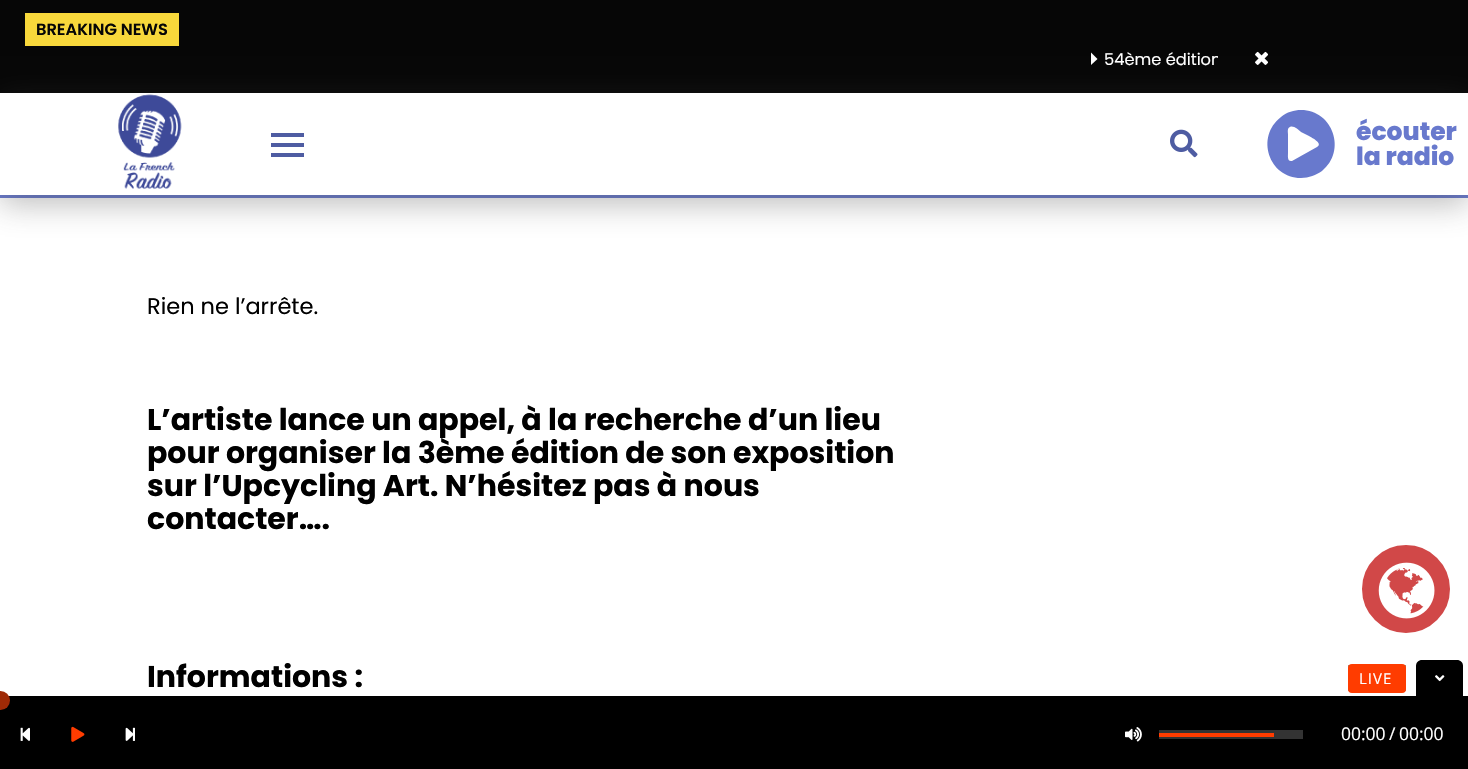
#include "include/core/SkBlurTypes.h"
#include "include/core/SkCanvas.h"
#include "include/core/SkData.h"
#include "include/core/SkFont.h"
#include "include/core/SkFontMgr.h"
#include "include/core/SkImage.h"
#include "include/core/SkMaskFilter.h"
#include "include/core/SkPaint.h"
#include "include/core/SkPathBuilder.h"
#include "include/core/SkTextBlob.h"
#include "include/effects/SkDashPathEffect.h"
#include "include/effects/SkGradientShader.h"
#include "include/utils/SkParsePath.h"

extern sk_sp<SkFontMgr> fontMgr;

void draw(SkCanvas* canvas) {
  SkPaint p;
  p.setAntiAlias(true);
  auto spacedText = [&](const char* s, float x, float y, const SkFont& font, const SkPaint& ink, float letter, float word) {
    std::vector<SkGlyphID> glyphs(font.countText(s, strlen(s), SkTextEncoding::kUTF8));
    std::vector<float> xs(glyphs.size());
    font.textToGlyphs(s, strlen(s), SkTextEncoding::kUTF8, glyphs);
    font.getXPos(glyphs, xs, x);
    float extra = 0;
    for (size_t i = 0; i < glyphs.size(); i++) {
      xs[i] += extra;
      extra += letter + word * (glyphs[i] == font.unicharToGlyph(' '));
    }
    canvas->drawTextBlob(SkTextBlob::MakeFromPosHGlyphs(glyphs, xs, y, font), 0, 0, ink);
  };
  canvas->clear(SK_ColorWHITE);
  p.setColor(SkColorSetRGB(104, 121, 205));
  canvas->drawRect(SkRect::MakeLTRB(0, 195, 1468, 198), p);
  p.setColor(SkColorSetRGB(6, 6, 6));
  canvas->drawRect(SkRect::MakeLTRB(0, 0, 1468, 93), p);
  p.setColor(SkColorSetRGB(248, 216, 59));
  canvas->drawRect(SkRect::MakeLTRB(25, 13, 179, 46), p);
  p.setColor(SK_ColorWHITE);
  canvas->drawPath(SkPathBuilder().moveTo(1091, 65).lineTo(1091, 52.5f).lineTo(1097.5f, 59).close().detach(), p);
  canvas->drawImageRect(SkImages::DeferredFromEncodedData(SkData::MakeFromFileName("images/1.png")), SkRect::MakeLTRB(1255, 51, 1268, 65), SkSamplingOptions());
  canvas->save();
  canvas->clipPath(SkPathBuilder(SkPathFillType::kEvenOdd).moveTo(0, 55).lineTo(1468, 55).lineTo(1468, 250).lineTo(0, 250).close().moveTo(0, 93).lineTo(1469, 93).lineTo(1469, 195).lineTo(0, 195).close().detach(), true);
  p.setColor(SkColorSetARGB(92, 68, 68, 68));
  p.setMaskFilter(SkMaskFilter::MakeBlur(kNormal_SkBlurStyle, 15));
  canvas->drawRect(SkRect::MakeLTRB(0, 101, 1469, 204), p);
  p.setMaskFilter(nullptr);
  canvas->restore();
  canvas->drawImageRect(SkImages::DeferredFromEncodedData(SkData::MakeFromFileName("images/2.png")), SkRect::MakeLTRB(118, 94, 182, 189), SkSamplingOptions());
  p.setColor(SkColorSetRGB(78, 92, 162));
  canvas->drawRect(SkRect::MakeLTRB(271, 143, 304, 147), p);
  canvas->drawRect(SkRect::MakeLTRB(271, 133, 304, 137), p);
  canvas->drawRect(SkRect::MakeLTRB(271, 153, 304, 157), p);
  canvas->drawImageRect(SkImages::DeferredFromEncodedData(SkData::MakeFromFileName("images/3.png")), SkRect::MakeLTRB(1170, 129, 1198, 158), SkSamplingOptions());
  p.setColor(SkColorSetRGB(104, 121, 205));
  canvas->drawPath(SkPathBuilder().moveTo(1301, 110).cubicTo(1294, 110, 1287, 112, 1281, 117).cubicTo(1255, 137, 1269, 178, 1301, 178).cubicTo(1309, 178, 1316, 175, 1322, 171).cubicTo(1347, 151, 1333, 110, 1301, 110).close().moveTo(1317, 147).lineTo(1292, 161).cubicTo(1287, 162, 1288, 156, 1288, 153).lineTo(1288, 134).cubicTo(1288, 132, 1287, 128, 1290, 127).cubicTo(1293, 125, 1299, 130, 1301, 132).lineTo(1309, 136).cubicTo(1310, 137, 1324, 143, 1317, 147).close().detach(), p);
  p.setColor(SkColorSetRGB(209, 72, 72));
  canvas->drawCircle(1406, 589, 47, p);
  p.setStyle(SkPaint::kStroke_Style);
  p.setStrokeWidth(6);
  p.setColor(SK_ColorWHITE);
  canvas->drawCircle(1406, 589, 47, p);
  canvas->drawImageRect(SkImages::DeferredFromEncodedData(SkData::MakeFromFileName("images/4.png")), SkRect::MakeLTRB(1378, 562, 1435, 619), SkSamplingOptions());
  p.setStyle(SkPaint::kFill_Style);
  p.setColor(SK_ColorBLACK);
  canvas->drawRect(SkRect::MakeLTRB(0, 696, 1468, 769), p);
  p.setColor(SkColorSetRGB(145, 145, 145));
  canvas->drawRect(SkRect::MakeLTRB(1348, 665, 1406, 691), p);
  p.setColor(SkColorSetRGB(255, 60, 0));
  canvas->drawRoundRect(SkRect::MakeLTRB(1348, 664, 1406, 693), 4, 4, p);
  p.setColor(SK_ColorBLACK);
  canvas->drawPath(SkPathBuilder().moveTo(1422, 660).lineTo(1457, 660).cubicTo(1460.5f, 660, 1463, 662.5f, 1463, 666).lineTo(1463, 696).lineTo(1416, 696).lineTo(1416, 666).cubicTo(1416, 662.5f, 1418.5f, 660, 1422, 660).close().detach(), p);
  canvas->drawImageRect(SkImages::DeferredFromEncodedData(SkData::MakeFromFileName("images/5.png")), SkRect::MakeLTRB(1435, 675, 1445, 682), SkSamplingOptions());
  p.setColor(SkColorSetRGB(159, 42, 6));
  canvas->drawCircle(0.5f, 700.5f, 9.5f, p);
  canvas->drawImageRect(SkImages::DeferredFromEncodedData(SkData::MakeFromFileName("images/6.png")), SkRect::MakeLTRB(20, 727, 30, 741), SkSamplingOptions());
  canvas->drawImageRect(SkImages::DeferredFromEncodedData(SkData::MakeFromFileName("images/7.png")), SkRect::MakeLTRB(71, 726, 85, 742), SkSamplingOptions());
  canvas->drawImageRect(SkImages::DeferredFromEncodedData(SkData::MakeFromFileName("images/8.png")), SkRect::MakeLTRB(125, 727, 135, 741), SkSamplingOptions());
  canvas->drawImageRect(SkImages::DeferredFromEncodedData(SkData::MakeFromFileName("images/9.png")), SkRect::MakeLTRB(1125, 727, 1142, 742), SkSamplingOptions());
  p.setColor(SkColorSetRGB(51, 51, 51));
  canvas->drawRect(SkRect::MakeLTRB(1159, 730, 1303, 739), p);
  p.setColor(SkColorSetRGB(255, 60, 0));
  canvas->drawRect(SkRect::MakeLTRB(1159, 733, 1274, 737), p);
  SkFont font1(fontMgr->matchFamilyStyle("Poppins", SkFontStyle(600, SkFontStyle::kNormal_Width, SkFontStyle::kUpright_Slant)), 16.25f);
  font1.setSubpixel(true);
  p.setColor(SkColorSetRGB(6, 6, 6));
  canvas->drawString("BREAKING NEWS", 36, 35, font1, p);
  canvas->save();
  canvas->clipRect(SkRect::MakeLTRB(25, 46, 1218, 73));
  SkFont font2(fontMgr->matchFamilyStyle("Poppins", SkFontStyle::Normal()), 16.25f);
  font2.setSubpixel(true);
  p.setColor(SK_ColorWHITE);
  canvas->drawString("54ème édition", 1104, 65, font2, p);
  canvas->restore();
  SkFont font3(fontMgr->matchFamilyStyle("Poppins", SkFontStyle(800, SkFontStyle::kNormal_Width, SkFontStyle::kUpright_Slant)), 25);
  font3.setSubpixel(true);
  p.setColor(SkColorSetRGB(104, 121, 205));
  canvas->drawString("écouter", 1356, 140, font3, p);
  canvas->drawString("la radio", 1356, 165, font3, p);
  SkFont font4(fontMgr->matchFamilyStyle("Poppins", SkFontStyle::Normal()), 22.5f);
  font4.setSubpixel(true);
  p.setColor(SK_ColorBLACK);
  canvas->drawString("Rien ne l’arrête.", 147, 314, font4, p);
  SkFont font5(fontMgr->matchFamilyStyle("Poppins", SkFontStyle::Bold()), 30);
  font5.setSubpixel(true);
  canvas->drawString("L’artiste lance un appel, à la recherche d’un lieu", 147, 430, font5, p);
  canvas->drawString("pour organiser la 3ème édition de son exposition", 147, 463, font5, p);
  canvas->drawString("sur l’Upcycling Art. N’hésitez pas à nous", 147, 496, font5, p);
  canvas->drawString("contacter….", 147, 529, font5, p);
  canvas->drawString("Informations :", 147, 687, font5, p);
  SkFont font6(fontMgr->matchFamilyStyle("Open Sans", SkFontStyle::Normal()), 15);
  font6.setSubpixel(true);
  p.setColor(SK_ColorWHITE);
  spacedText("LIVE", 1359, 684, font6, p, 1, 0);
  SkFont font7(fontMgr->matchFamilyStyle("Open Sans", SkFontStyle::Normal()), 17.5f);
  font7.setSubpixel(true);
  canvas->drawString("00:00", 1341, 740, font7, p);
  canvas->drawString("/", 1389, 740, font7, p);
  canvas->drawString("00:00", 1399, 740, font7, p);
}
